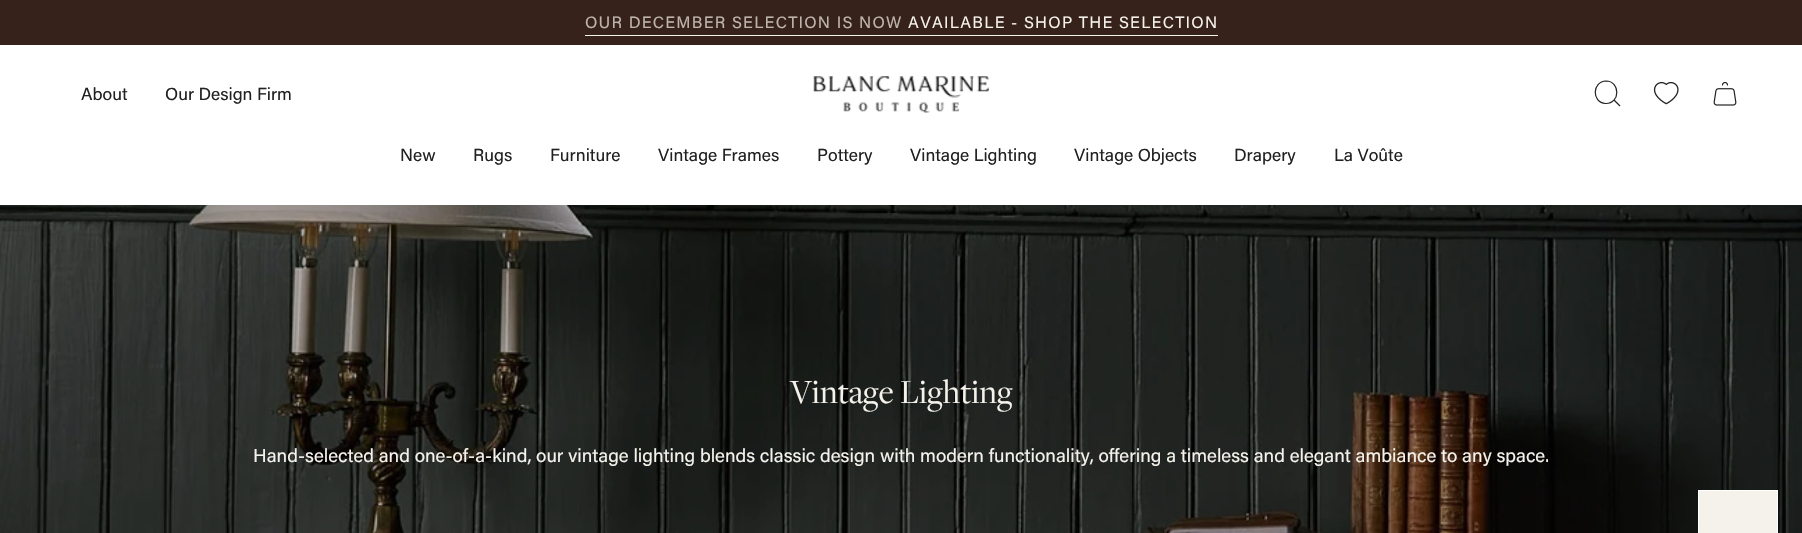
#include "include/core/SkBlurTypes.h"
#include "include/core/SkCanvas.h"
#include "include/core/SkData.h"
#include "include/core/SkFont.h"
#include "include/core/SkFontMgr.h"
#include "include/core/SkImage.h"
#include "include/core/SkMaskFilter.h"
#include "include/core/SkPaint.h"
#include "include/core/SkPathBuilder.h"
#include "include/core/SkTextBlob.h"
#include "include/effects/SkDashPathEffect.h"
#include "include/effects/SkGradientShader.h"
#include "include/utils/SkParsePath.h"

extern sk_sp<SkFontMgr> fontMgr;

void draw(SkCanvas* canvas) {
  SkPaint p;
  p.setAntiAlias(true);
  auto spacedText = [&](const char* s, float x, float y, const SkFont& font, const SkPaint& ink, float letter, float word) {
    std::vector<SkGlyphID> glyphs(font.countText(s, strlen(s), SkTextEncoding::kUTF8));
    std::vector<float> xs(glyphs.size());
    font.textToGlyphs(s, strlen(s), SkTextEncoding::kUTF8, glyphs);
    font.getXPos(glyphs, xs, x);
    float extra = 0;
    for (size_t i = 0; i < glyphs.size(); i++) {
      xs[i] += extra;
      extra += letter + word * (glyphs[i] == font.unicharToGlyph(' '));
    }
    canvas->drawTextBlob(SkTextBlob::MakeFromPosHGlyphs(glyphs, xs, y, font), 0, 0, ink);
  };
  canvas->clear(SK_ColorWHITE);
  p.setColor(SkColorSetRGB(54, 34, 26));
  canvas->drawRect(SkRect::MakeLTRB(0, 0, 1802, 45), p);
  p.setColor(SkColorSetRGB(245, 242, 236));
  canvas->drawRect(SkRect::MakeLTRB(585, 35, 1218, 36), p);
  canvas->drawImageRect(SkImages::DeferredFromEncodedData(SkData::MakeFromFileName("images/1.png")), SkRect::MakeLTRB(813, 76, 989, 113), SkSamplingOptions());
  p.setStyle(SkPaint::kStroke_Style);
  p.setStrokeWidth(1.2f);
  p.setColor(SkColorSetRGB(33, 33, 33));
  canvas->drawPath(SkPathBuilder().moveTo(1606, 81).cubicTo(1620.5f, 81, 1620.5f, 104, 1605.5f, 103.5f).cubicTo(1591.5f, 102.5f, 1592, 81.5f, 1606, 81).close().moveTo(1614, 100).lineTo(1620, 106).detach(), p);
  canvas->drawImageRect(SkImages::DeferredFromEncodedData(SkData::MakeFromFileName("images/2.png")), SkRect::MakeLTRB(1653, 82, 1679, 105), SkSamplingOptions());
  canvas->drawImageRect(SkImages::DeferredFromEncodedData(SkData::MakeFromFileName("images/3.png")), SkRect::MakeLTRB(1713, 81, 1737, 106), SkSamplingOptions());
  canvas->drawImageRect(SkImages::DeferredFromEncodedData(SkData::MakeFromFileName("images/4.png")), SkRect::MakeLTRB(0, 205, 1802, 533), SkSamplingOptions());
  p.setStyle(SkPaint::kFill_Style);
  p.setColor(SkColorSetRGB(245, 242, 236));
  canvas->drawRect(SkRect::MakeLTRB(1698.5f, 490.5f, 1777.5f, 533.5f), p);
  p.setStyle(SkPaint::kStroke_Style);
  p.setStrokeWidth(1);
  p.setColor(SK_ColorWHITE);
  canvas->drawRect(SkRect::MakeLTRB(1698.5f, 490.5f, 1777.5f, 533.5f), p);
  SkFont font1(fontMgr->matchFamilyStyle("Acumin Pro", SkFontStyle::Normal()), 16.4f);
  font1.setSubpixel(true);
  p.setStyle(SkPaint::kFill_Style);
  {
    const SkColor colors[] = {SkColorSetRGB(188, 180, 173), SkColorSetRGB(188, 180, 173), SkColorSetRGB(245, 242, 236), SkColorSetRGB(245, 242, 236)};
    const float stops[] = {0, 0.5f, 0.5f, 1};
    const SkPoint ends[] = {{585, 23}, {1218, 22}};
    p.setShader(SkGradientShader::MakeLinear(ends, colors, stops, 4, SkTileMode::kClamp));
    p.setAlpha(255);
  }
  spacedText("OUR DECEMBER SELECTION IS NOW AVAILABLE - SHOP THE SELECTION", 585, 28, font1, p, 1.25f, 0);
  SkFont font2(fontMgr->matchFamilyStyle("Acumin Pro", SkFontStyle::Normal()), 17.5f);
  font2.setSubpixel(true);
  p.setShader(nullptr);
  p.setColor(SkColorSetRGB(33, 33, 33));
  canvas->drawString("About", 81, 100, font2, p);
  canvas->drawString("Our Design Firm", 165, 100, font2, p);
  canvas->drawString("New", 400, 161, font2, p);
  canvas->drawString("Rugs", 473, 161, font2, p);
  canvas->drawString("Furniture", 550, 161, font2, p);
  canvas->drawString("Vintage Frames", 658, 161, font2, p);
  canvas->drawString("Pottery", 817, 161, font2, p);
  canvas->drawString("Vintage Lighting", 910, 161, font2, p);
  canvas->drawString("Vintage Objects", 1074, 161, font2, p);
  canvas->drawString("Drapery", 1234, 161, font2, p);
  canvas->drawString("La Voûte", 1334, 161, font2, p);
  SkFont font3(fontMgr->matchFamilyStyle("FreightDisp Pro", SkFontStyle::Normal()), 35);
  font3.setSubpixel(true);
  p.setColor(SkColorSetRGB(245, 242, 236));
  canvas->drawString("Vintage Lighting", 790, 403, font3, p);
  SkFont font4(fontMgr->matchFamilyStyle("Acumin Pro", SkFontStyle::Normal()), 18.75f);
  font4.setSubpixel(true);
  canvas->drawString("Hand-selected and one-of-a-kind, our vintage lighting blends classic design with modern functionality, offering a timeless and elegant ambiance to any space.", 253, 462, font4, p);
}
